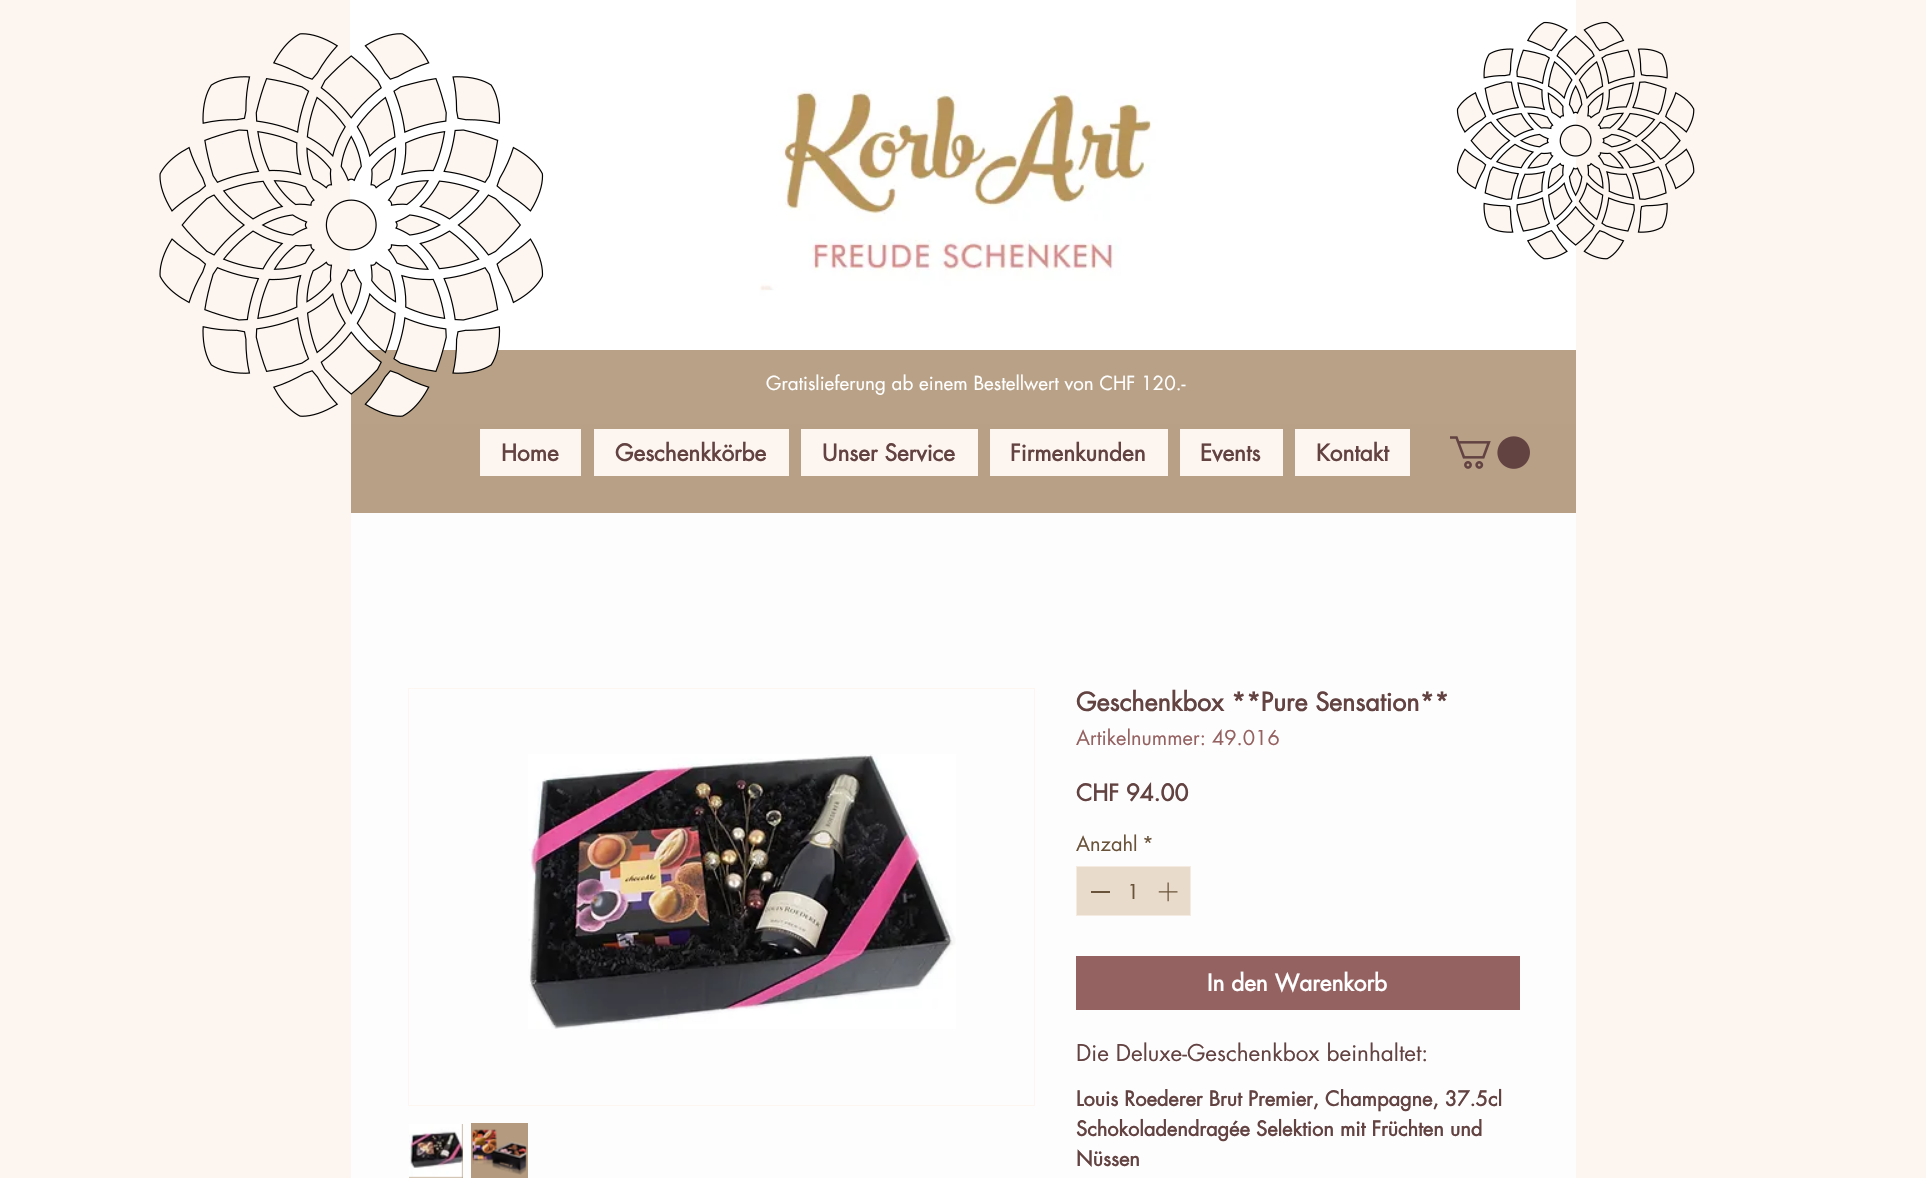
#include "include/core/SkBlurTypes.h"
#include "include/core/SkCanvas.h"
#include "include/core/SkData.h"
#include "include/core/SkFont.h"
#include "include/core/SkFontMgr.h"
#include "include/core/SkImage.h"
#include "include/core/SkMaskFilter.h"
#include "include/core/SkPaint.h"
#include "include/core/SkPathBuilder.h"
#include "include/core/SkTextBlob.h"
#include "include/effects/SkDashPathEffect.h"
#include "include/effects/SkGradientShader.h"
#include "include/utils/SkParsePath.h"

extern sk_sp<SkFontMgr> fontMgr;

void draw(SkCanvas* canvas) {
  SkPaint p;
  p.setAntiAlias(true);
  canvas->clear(SkColorSetRGB(253, 246, 240));
  p.setColor(SkColorSetRGB(184, 161, 134));
  canvas->drawRect(SkRect::MakeLTRB(351, 350, 1576, 424), p);
  canvas->drawImageRect(SkImages::DeferredFromEncodedData(SkData::MakeFromFileName("images/1.png")), SkRect::MakeLTRB(350, 0, 1576, 350), SkSamplingOptions());
  canvas->drawImageRect(SkImages::DeferredFromEncodedData(SkData::MakeFromFileName("images/2.png")), SkRect::MakeLTRB(159, 33, 544, 417), SkSamplingOptions());
  canvas->drawImageRect(SkImages::DeferredFromEncodedData(SkData::MakeFromFileName("images/3.png")), SkRect::MakeLTRB(1456, 21, 1695, 260), SkSamplingOptions());
  p.setColor(SkColorSetRGB(184, 160, 134));
  canvas->drawRect(SkRect::MakeLTRB(351, 424, 1576, 513), p);
  p.setColor(SkColorSetRGB(253, 246, 240));
  canvas->drawRect(SkRect::MakeLTRB(480, 429, 581, 476), p);
  canvas->drawRect(SkRect::MakeLTRB(594, 429, 789, 476), p);
  canvas->drawRect(SkRect::MakeLTRB(801, 429, 978, 476), p);
  canvas->drawRect(SkRect::MakeLTRB(990, 429, 1168, 476), p);
  canvas->drawRect(SkRect::MakeLTRB(1180, 429, 1283, 476), p);
  canvas->drawRect(SkRect::MakeLTRB(1295, 429, 1410, 476), p);
  canvas->drawImageRect(SkImages::DeferredFromEncodedData(SkData::MakeFromFileName("images/4.png")), SkRect::MakeLTRB(1450, 436, 1530, 469), SkSamplingOptions());
  p.setColor(SkColorSetRGB(254, 253, 253));
  canvas->drawRect(SkRect::MakeLTRB(351, 513, 1576, 1178), p);
  p.setStyle(SkPaint::kStroke_Style);
  p.setStrokeWidth(1);
  p.setColor(SkColorSetRGB(253, 246, 240));
  canvas->drawRect(SkRect::MakeLTRB(408.5f, 688.5f, 1034.5f, 1105.5f), p);
  canvas->drawImageRect(SkImages::DeferredFromEncodedData(SkData::MakeFromFileName("images/5.png")), SkRect::MakeLTRB(528, 754, 956, 1029), SkSamplingOptions());
  p.setStyle(SkPaint::kFill_Style);
  p.setColor(SkColorSetRGB(180, 155, 127));
  canvas->drawRect(SkRect::MakeLTRB(409, 1124, 463, 1178), p);
  canvas->drawImageRect(SkImages::DeferredFromEncodedData(SkData::MakeFromFileName("images/6.png")), SkRect::MakeLTRB(409, 1124, 463, 1178), SkSamplingOptions());
  canvas->drawRect(SkRect::MakeLTRB(471, 1123, 528, 1178), p);
  canvas->drawImageRect(SkImages::DeferredFromEncodedData(SkData::MakeFromFileName("images/7.png")), SkRect::MakeLTRB(472, 1129, 527, 1175), SkSamplingOptions());
  p.setColor(SkColorSetRGB(233, 219, 203));
  canvas->drawRect(SkRect::MakeLTRB(1076.5f, 866.5f, 1190.5f, 915.5f), p);
  p.setStyle(SkPaint::kStroke_Style);
  p.setColor(SkColorSetRGB(245, 235, 225));
  canvas->drawRect(SkRect::MakeLTRB(1076.5f, 866.5f, 1190.5f, 915.5f), p);
  p.setStyle(SkPaint::kFill_Style);
  p.setColor(SkColorSetRGB(105, 83, 58));
  canvas->drawRect(SkRect::MakeLTRB(1091, 891, 1110, 893), p);
  canvas->drawImageRect(SkImages::DeferredFromEncodedData(SkData::MakeFromFileName("images/8.png")), SkRect::MakeLTRB(1158, 882, 1178, 902), SkSamplingOptions());
  p.setColor(SkColorSetRGB(149, 98, 98));
  canvas->drawRect(SkRect::MakeLTRB(1076, 956, 1520, 1010), p);
  SkFont font1(fontMgr->matchFamilyStyle("futura", SkFontStyle::Normal()), 18.75f);
  font1.setSubpixel(true);
  p.setColor(SK_ColorWHITE);
  canvas->drawString("Gratislieferung ab einem Bestellwert von CHF 120.-", 766, 390, font1, p);
  SkFont font2(fontMgr->matchFamilyStyle("futura", SkFontStyle::Bold()), 22.5f);
  font2.setSubpixel(true);
  p.setColor(SkColorSetRGB(99, 66, 66));
  canvas->drawString("Home", 501, 461, font2, p);
  canvas->drawString("Geschenkkörbe", 615, 461, font2, p);
  canvas->drawString("Unser Service", 822, 461, font2, p);
  canvas->drawString("Firmenkunden", 1010, 461, font2, p);
  canvas->drawString("Events", 1200, 461, font2, p);
  canvas->drawString("Kontakt", 1316, 461, font2, p);
  SkFont font3(fontMgr->matchFamilyStyle("futura", SkFontStyle::Bold()), 25);
  font3.setSubpixel(true);
  canvas->drawString("Geschenkbox **Pure Sensation**", 1076, 711, font3, p);
  SkFont font4(fontMgr->matchFamilyStyle("futura", SkFontStyle::Normal()), 20);
  font4.setSubpixel(true);
  p.setColor(SkColorSetRGB(149, 98, 98));
  canvas->drawString("Artikelnummer: 49.016", 1076, 745, font4, p);
  p.setColor(SkColorSetRGB(99, 66, 66));
  canvas->drawString("CHF 94.00", 1076, 801, font2, p);
  p.setColor(SkColorSetRGB(105, 83, 58));
  canvas->drawString("Anzahl", 1076, 851, font4, p);
  canvas->drawString("*", 1142, 851, font4, p);
  canvas->drawString("1", 1127, 899, font4, p);
  p.setColor(SK_ColorWHITE);
  canvas->drawString("In den Warenkorb", 1207, 991, font2, p);
  SkFont font5(fontMgr->matchFamilyStyle("futura", SkFontStyle::Normal()), 22.5f);
  font5.setSubpixel(true);
  p.setColor(SkColorSetRGB(99, 66, 66));
  canvas->drawString("Die Deluxe-Geschenkbox beinhaltet:", 1076, 1061, font5, p);
  SkFont font6(fontMgr->matchFamilyStyle("futura", SkFontStyle::Bold()), 20);
  font6.setSubpixel(true);
  canvas->drawString("Louis Roederer Brut Premier, Champagne, 37.5cl", 1076, 1106, font6, p);
  canvas->drawString("Schokoladendragée Selektion mit Früchten und", 1076, 1136, font6, p);
  canvas->drawString("Nüssen", 1076, 1166, font6, p);
}
